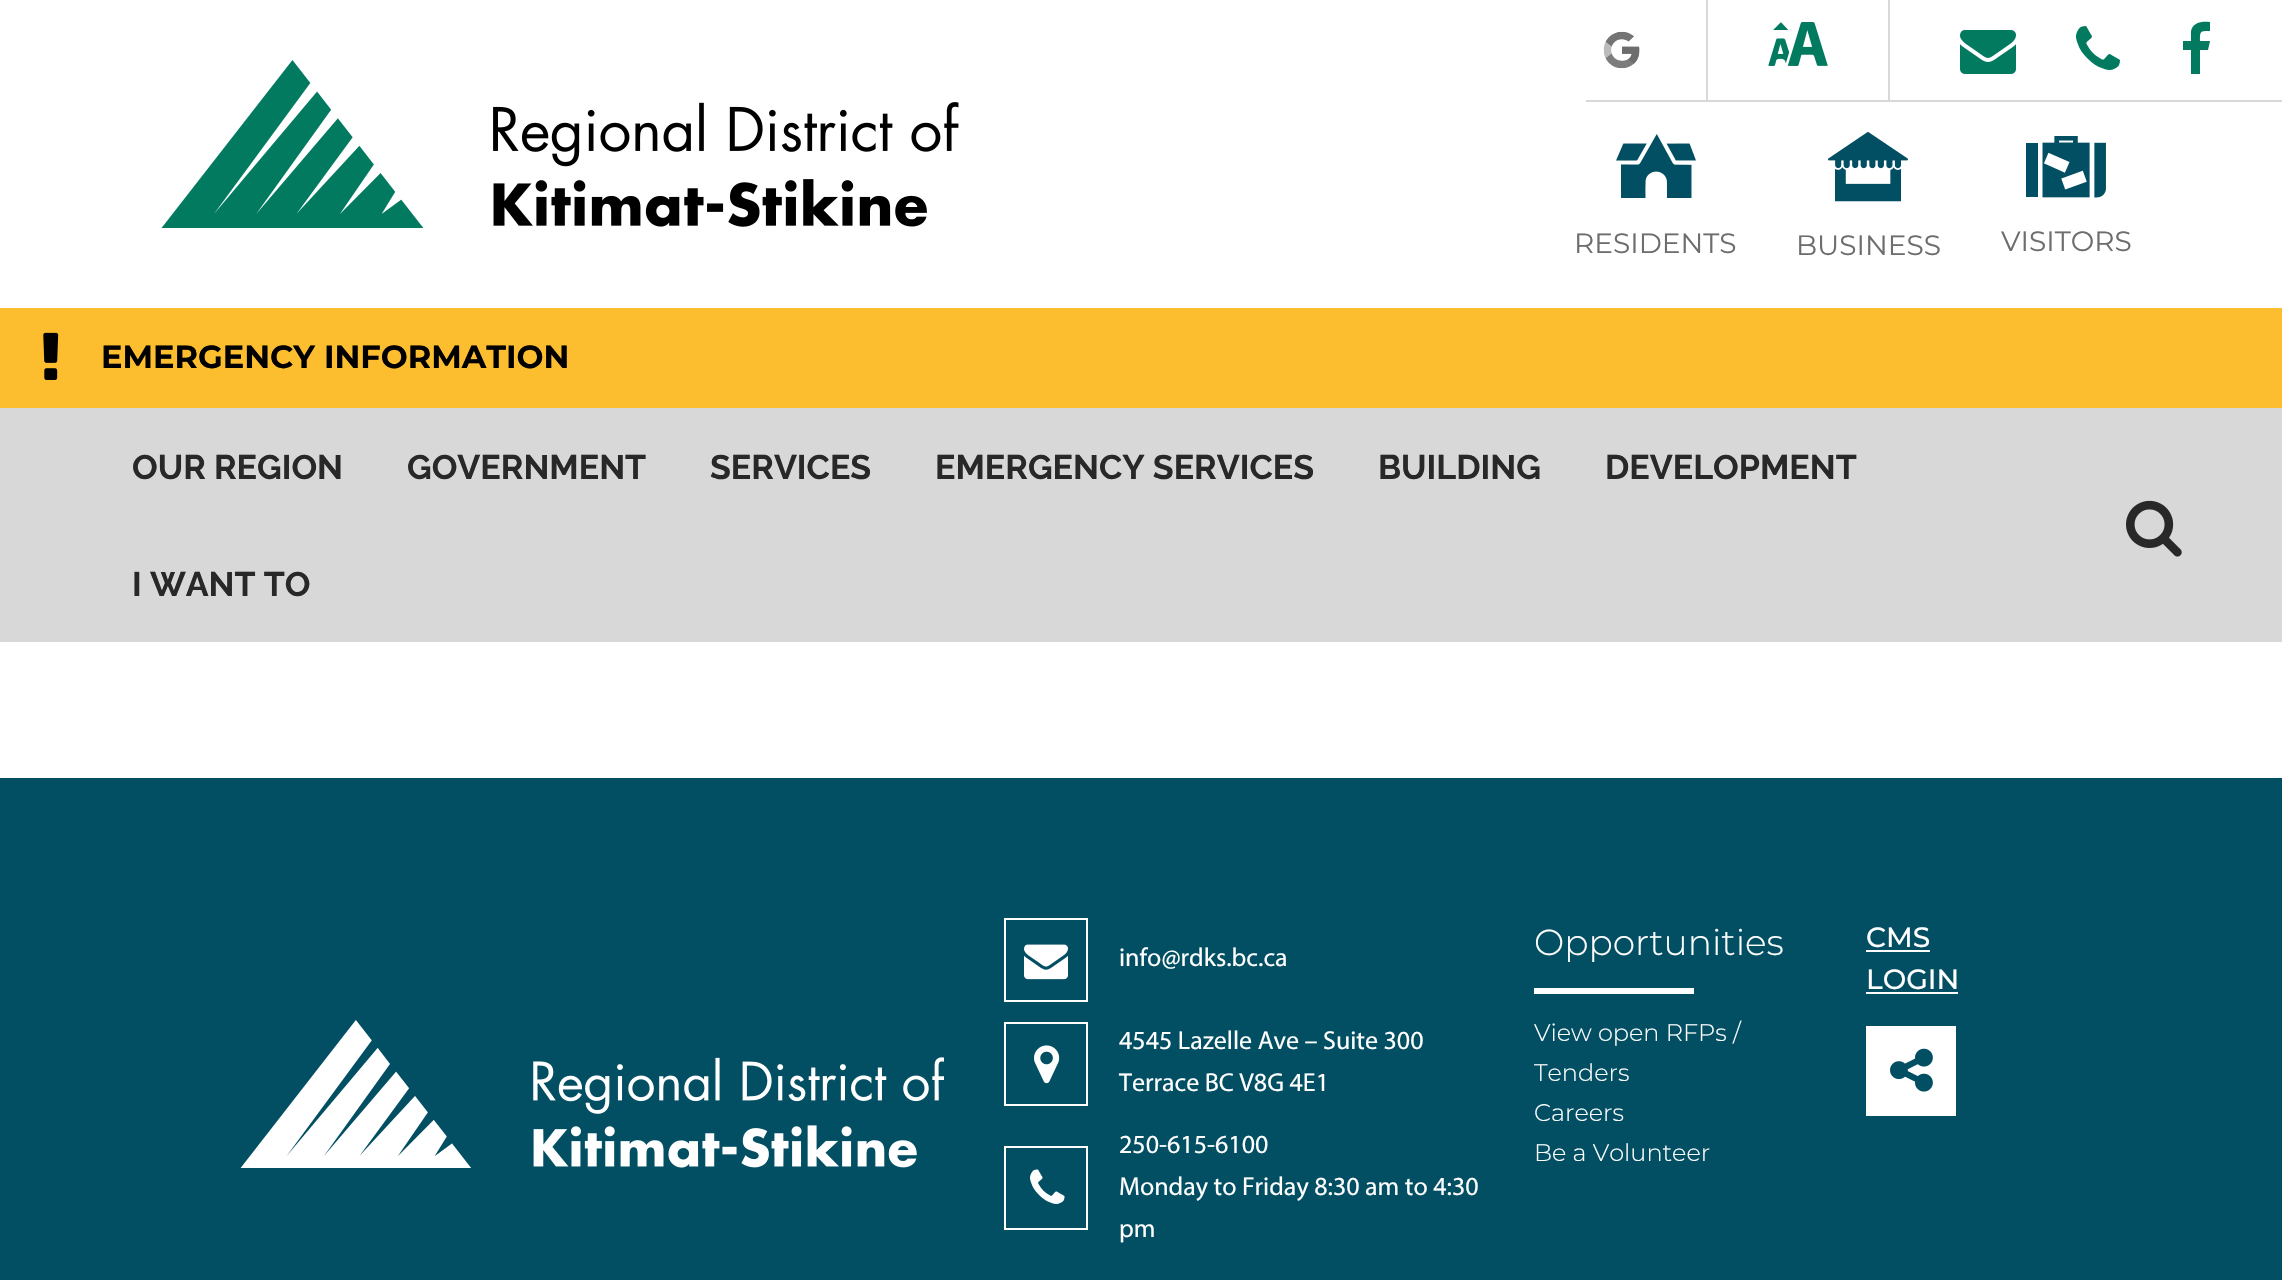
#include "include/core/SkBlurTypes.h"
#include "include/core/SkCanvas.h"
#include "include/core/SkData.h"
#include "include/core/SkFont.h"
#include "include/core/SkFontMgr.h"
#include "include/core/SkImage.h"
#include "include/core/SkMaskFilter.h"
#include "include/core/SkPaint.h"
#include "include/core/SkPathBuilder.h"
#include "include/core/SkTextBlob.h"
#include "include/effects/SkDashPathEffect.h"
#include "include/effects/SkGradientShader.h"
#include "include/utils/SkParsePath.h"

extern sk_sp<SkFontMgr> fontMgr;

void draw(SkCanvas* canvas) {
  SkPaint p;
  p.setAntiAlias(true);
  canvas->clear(SK_ColorWHITE);
  canvas->drawImageRect(SkImages::DeferredFromEncodedData(SkData::MakeFromFileName("images/1.png")), SkRect::MakeLTRB(161, 60, 959, 228), SkSamplingOptions());
  p.setColor(SkColorSetRGB(216, 216, 216));
  canvas->drawRect(SkRect::MakeLTRB(1706, 0, 1708, 102), p);
  canvas->drawRect(SkRect::MakeLTRB(1586, 100, 1708, 102), p);
  canvas->drawImageRect(SkImages::DeferredFromEncodedData(SkData::MakeFromFileName("images/2.png")), SkRect::MakeLTRB(1603, 31, 1640, 69), SkSamplingOptions());
  canvas->drawRect(SkRect::MakeLTRB(1888, 0, 1890, 102), p);
  canvas->drawRect(SkRect::MakeLTRB(1708, 100, 2282, 102), p);
  canvas->drawImageRect(SkImages::DeferredFromEncodedData(SkData::MakeFromFileName("images/3.png")), SkRect::MakeLTRB(1768, 22, 1828, 66), SkSamplingOptions());
  canvas->drawImageRect(SkImages::DeferredFromEncodedData(SkData::MakeFromFileName("images/4.png")), SkRect::MakeLTRB(1960, 30, 2016, 74), SkSamplingOptions());
  canvas->drawImageRect(SkImages::DeferredFromEncodedData(SkData::MakeFromFileName("images/5.png")), SkRect::MakeLTRB(2076, 26, 2120, 70), SkSamplingOptions());
  p.setColor(SkColorSetRGB(2, 122, 96));
  canvas->drawPath(SkPathBuilder().moveTo(2210, 22).lineTo(2210, 31).cubicTo(2200, 31, 2200, 31, 2200, 41).lineTo(2210, 41).lineTo(2208, 50).lineTo(2200, 50).lineTo(2200, 74).lineTo(2191, 74).lineTo(2191, 50).lineTo(2183, 50).lineTo(2183, 41).lineTo(2191, 41).lineTo(2191, 31).cubicTo(2193, 22, 2202, 21, 2210, 22).close().detach(), p);
  canvas->drawImageRect(SkImages::DeferredFromEncodedData(SkData::MakeFromFileName("images/6.png")), SkRect::MakeLTRB(1616, 134, 1696, 198), SkSamplingOptions());
  canvas->drawImageRect(SkImages::DeferredFromEncodedData(SkData::MakeFromFileName("images/7.png")), SkRect::MakeLTRB(1828, 132, 1908, 202), SkSamplingOptions());
  canvas->drawImageRect(SkImages::DeferredFromEncodedData(SkData::MakeFromFileName("images/8.png")), SkRect::MakeLTRB(2026, 136, 2106, 198), SkSamplingOptions());
  p.setColor(SkColorSetRGB(252, 189, 46));
  canvas->drawRect(SkRect::MakeLTRB(0, 308, 2282, 408), p);
  canvas->drawImageRect(SkImages::DeferredFromEncodedData(SkData::MakeFromFileName("images/9.png")), SkRect::MakeLTRB(43, 332, 59, 380), SkSamplingOptions());
  p.setColor(SkColorSetRGB(216, 216, 216));
  canvas->drawRect(SkRect::MakeLTRB(0, 408, 2282, 642), p);
  canvas->drawImageRect(SkImages::DeferredFromEncodedData(SkData::MakeFromFileName("images/10.png")), SkRect::MakeLTRB(2126, 500, 2182, 557), SkSamplingOptions());
  p.setColor(SkColorSetRGB(2, 78, 98));
  canvas->drawRect(SkRect::MakeLTRB(0, 778, 2282, 1280), p);
  canvas->drawImageRect(SkImages::DeferredFromEncodedData(SkData::MakeFromFileName("images/11.png")), SkRect::MakeLTRB(240, 1020, 944, 1168), SkSamplingOptions());
  p.setStyle(SkPaint::kStroke_Style);
  p.setStrokeWidth(2);
  p.setColor(SK_ColorWHITE);
  canvas->drawRect(SkRect::MakeLTRB(1005, 919, 1087, 1001), p);
  canvas->drawImageRect(SkImages::DeferredFromEncodedData(SkData::MakeFromFileName("images/12.png")), SkRect::MakeLTRB(1024, 944, 1068, 980), SkSamplingOptions());
  canvas->drawRect(SkRect::MakeLTRB(1005, 1023, 1087, 1105), p);
  canvas->drawImageRect(SkImages::DeferredFromEncodedData(SkData::MakeFromFileName("images/13.png")), SkRect::MakeLTRB(1034, 1045, 1060, 1084), SkSamplingOptions());
  canvas->drawRect(SkRect::MakeLTRB(1005, 1147, 1087, 1229), p);
  canvas->drawImageRect(SkImages::DeferredFromEncodedData(SkData::MakeFromFileName("images/14.png")), SkRect::MakeLTRB(1030, 1169, 1065, 1204), SkSamplingOptions());
  p.setStyle(SkPaint::kFill_Style);
  canvas->drawRect(SkRect::MakeLTRB(1534, 988, 1694, 994), p);
  canvas->drawRect(SkRect::MakeLTRB(1866, 950, 1930, 952), p);
  canvas->drawRect(SkRect::MakeLTRB(1866, 992, 1958, 994), p);
  canvas->drawRect(SkRect::MakeLTRB(1866, 1026, 1956, 1116), p);
  canvas->drawImageRect(SkImages::DeferredFromEncodedData(SkData::MakeFromFileName("images/15.png")), SkRect::MakeLTRB(1890, 1048, 1933, 1092), SkSamplingOptions());
  SkFont font1(fontMgr->matchFamilyStyle("Montserrat", SkFontStyle::Normal()), 28);
  font1.setSubpixel(true);
  p.setColor(SkColorSetRGB(109, 109, 109));
  canvas->drawString("RESIDENTS", 1574, 253, font1, p);
  canvas->drawString("BUSINESS", 1796, 255, font1, p);
  canvas->drawString("VISITORS", 2001, 251, font1, p);
  SkFont font2(fontMgr->matchFamilyStyle("Montserrat", SkFontStyle::Bold()), 32);
  font2.setSubpixel(true);
  p.setColor(SK_ColorBLACK);
  canvas->drawString("EMERGENCY INFORMATION", 101, 368, font2, p);
  SkFont font3(fontMgr->matchFamilyStyle("Raleway", SkFontStyle::Bold()), 34);
  font3.setSubpixel(true);
  p.setColor(SkColorSetRGB(40, 40, 40));
  canvas->drawString("OUR REGION", 132, 479, font3, p);
  canvas->drawString("GOVERNMENT", 407, 479, font3, p);
  canvas->drawString("SERVICES", 710, 479, font3, p);
  canvas->drawString("EMERGENCY SERVICES", 935, 479, font3, p);
  canvas->drawString("BUILDING", 1378, 479, font3, p);
  canvas->drawString("DEVELOPMENT", 1605, 479, font3, p);
  canvas->drawString("I WANT TO", 132, 596, font3, p);
  SkFont font4(fontMgr->matchFamilyStyle("Myriad", SkFontStyle::Normal()), 26);
  font4.setSubpixel(true);
  p.setColor(SK_ColorWHITE);
  canvas->drawString("info@rdks.bc.ca", 1119, 966, font4, p);
  canvas->drawString("4545 Lazelle Ave – Suite 300", 1119, 1049, font4, p);
  canvas->drawString("Terrace BC V8G 4E1", 1119, 1091, font4, p);
  canvas->drawString("250-615-6100", 1119, 1153, font4, p);
  canvas->drawString("Monday to Friday 8:30 am to 4:30", 1119, 1195, font4, p);
  canvas->drawString("pm", 1119, 1237, font4, p);
  SkFont font5(fontMgr->matchFamilyStyle("Montserrat", SkFontStyle(300, SkFontStyle::kNormal_Width, SkFontStyle::kUpright_Slant)), 36);
  font5.setSubpixel(true);
  canvas->drawString("Opportunities", 1534, 955, font5, p);
  SkFont font6(fontMgr->matchFamilyStyle("Montserrat", SkFontStyle(300, SkFontStyle::kNormal_Width, SkFontStyle::kUpright_Slant)), 24);
  font6.setSubpixel(true);
  canvas->drawString("View open RFPs /", 1534, 1041, font6, p);
  canvas->drawString("Tenders", 1534, 1081, font6, p);
  canvas->drawString("Careers", 1534, 1121, font6, p);
  canvas->drawString("Be a Volunteer", 1534, 1161, font6, p);
  SkFont font7(fontMgr->matchFamilyStyle("Montserrat", SkFontStyle(500, SkFontStyle::kNormal_Width, SkFontStyle::kUpright_Slant)), 28);
  font7.setSubpixel(true);
  canvas->drawString("CMS", 1866, 947, font7, p);
  canvas->drawString("LOGIN", 1866, 989, font7, p);
}
